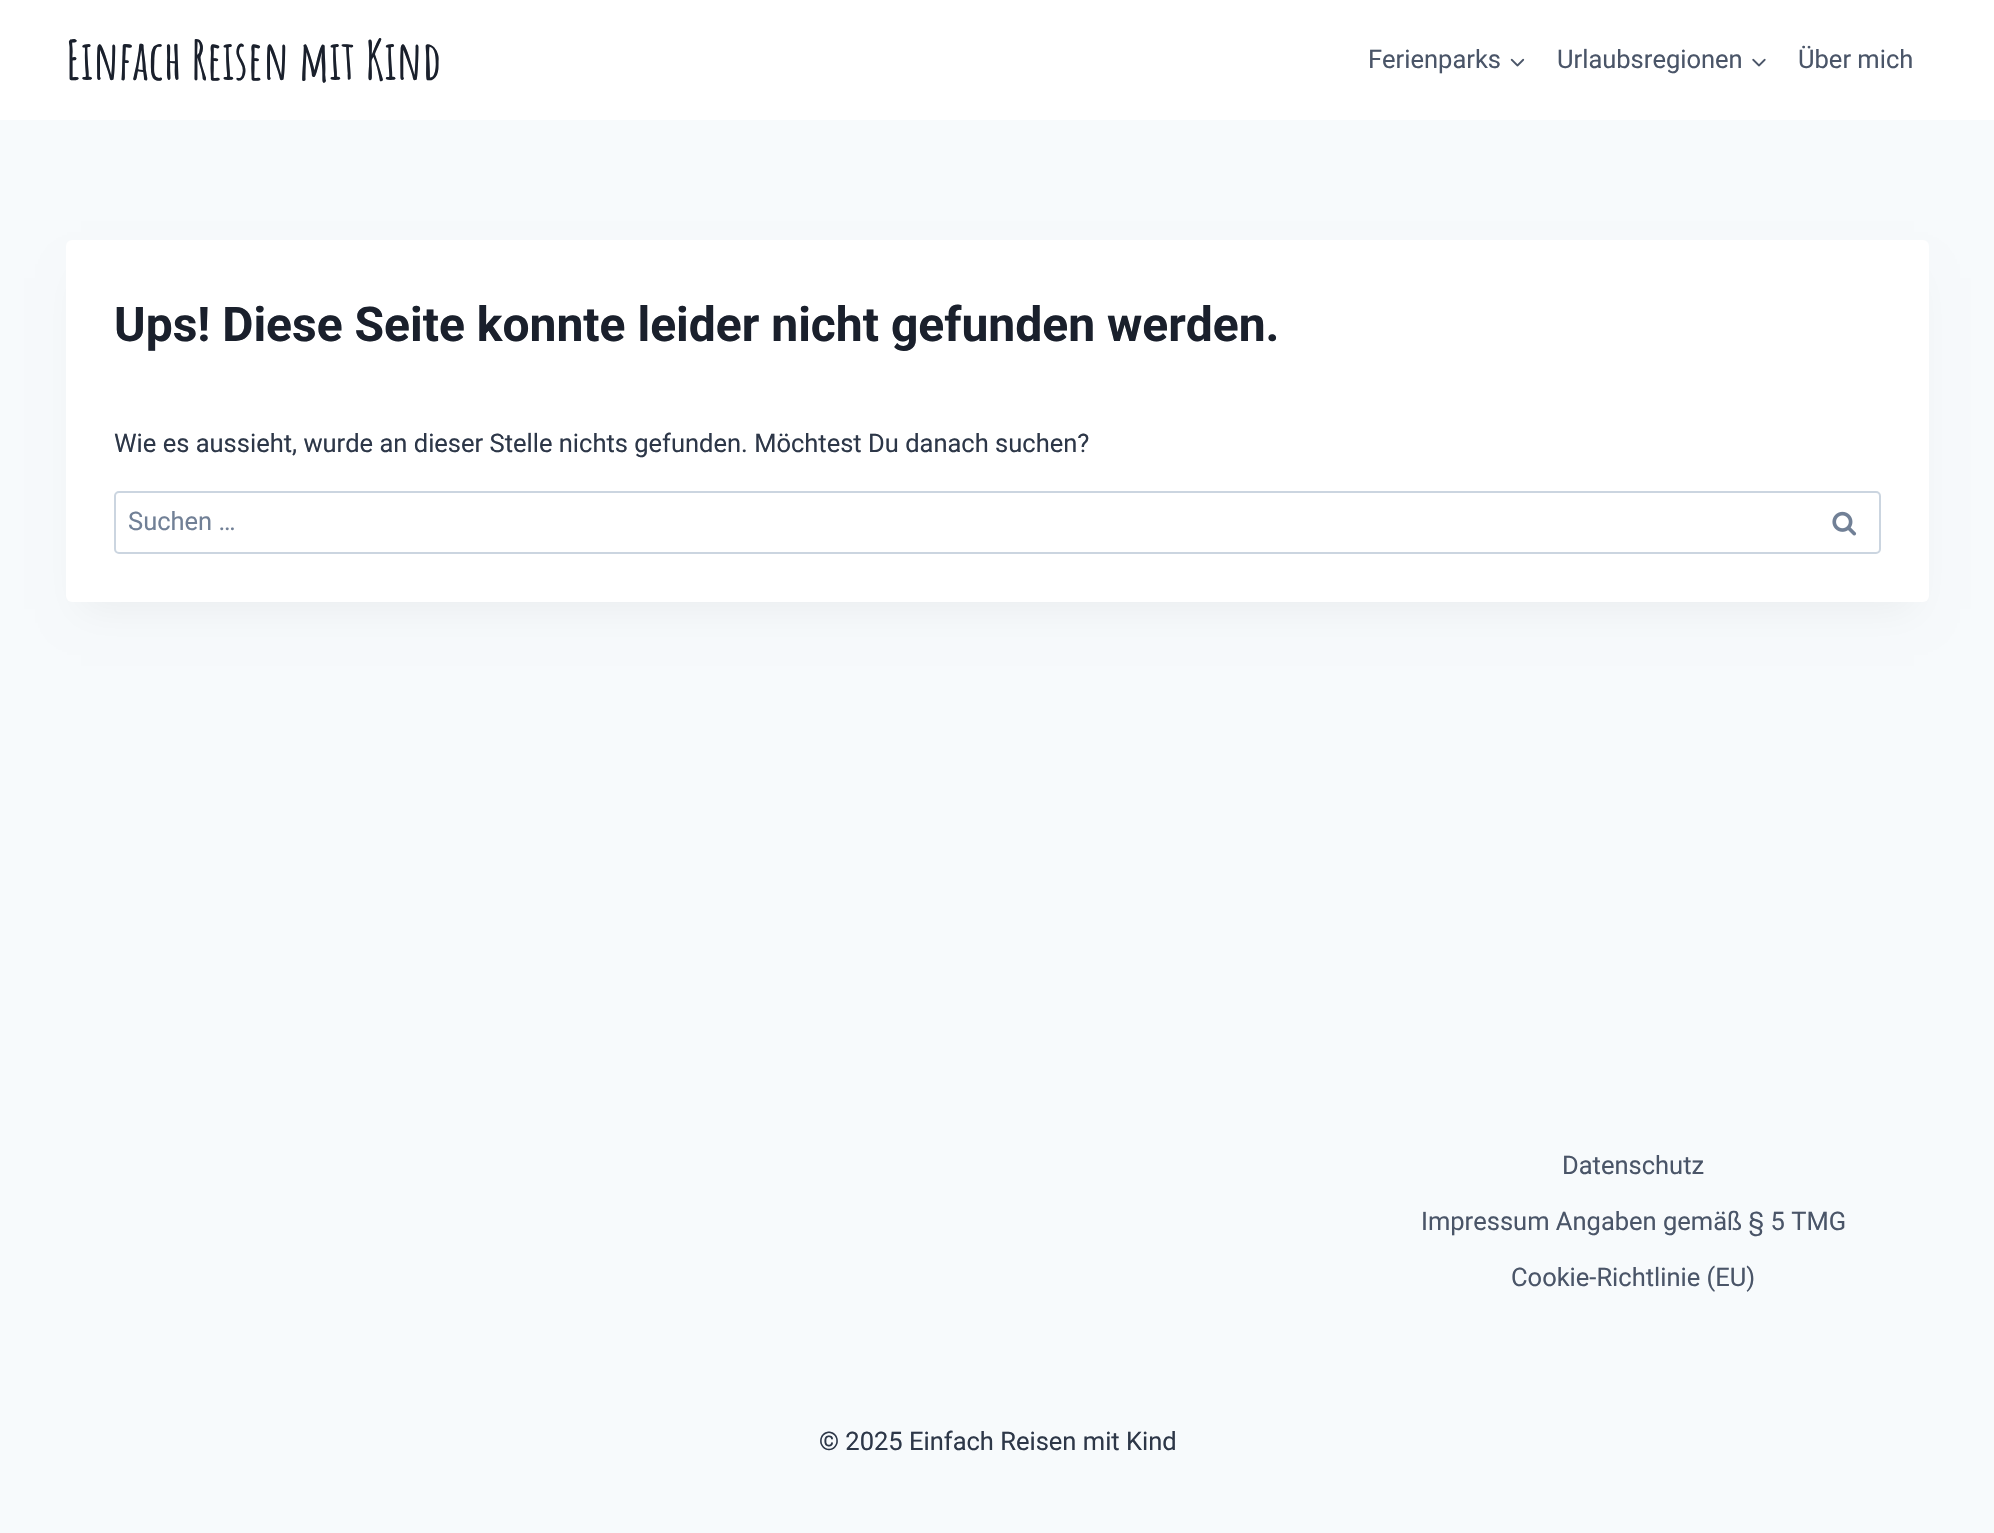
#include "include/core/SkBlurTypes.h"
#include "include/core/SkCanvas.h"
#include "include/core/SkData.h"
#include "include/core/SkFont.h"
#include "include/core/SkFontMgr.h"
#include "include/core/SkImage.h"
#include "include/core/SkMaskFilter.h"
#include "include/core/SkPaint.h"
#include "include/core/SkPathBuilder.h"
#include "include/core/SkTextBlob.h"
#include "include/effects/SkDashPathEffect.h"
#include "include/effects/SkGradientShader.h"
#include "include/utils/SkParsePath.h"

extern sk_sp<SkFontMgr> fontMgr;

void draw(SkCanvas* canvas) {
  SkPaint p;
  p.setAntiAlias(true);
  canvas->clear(SkColorSetRGB(247, 250, 252));
  p.setColor(SK_ColorWHITE);
  canvas->drawRect(SkRect::MakeLTRB(0, 0, 1994, 120), p);
  canvas->drawImageRect(SkImages::DeferredFromEncodedData(SkData::MakeFromFileName("images/1.png")), SkRect::MakeLTRB(1510, 58, 1525, 67), SkSamplingOptions());
  canvas->drawImageRect(SkImages::DeferredFromEncodedData(SkData::MakeFromFileName("images/2.png")), SkRect::MakeLTRB(1752, 58, 1766, 67), SkSamplingOptions());
  p.setColor(SkColorSetARGB(13, 0, 0, 0));
  p.setMaskFilter(SkMaskFilter::MakeBlur(kNormal_SkBlurStyle, 19));
  canvas->drawRect(SkRect::MakeLTRB(81, 278, 1914, 609), p);
  p.setMaskFilter(nullptr);
  p.setColor(SK_ColorWHITE);
  canvas->drawRoundRect(SkRect::MakeLTRB(66, 240, 1929, 602), 6, 6, p);
  p.setStyle(SkPaint::kStroke_Style);
  p.setStrokeWidth(2);
  p.setColor(SkColorSetRGB(203, 213, 224));
  canvas->drawRoundRect(SkRect::MakeLTRB(115, 492, 1880, 553), 4, 4, p);
  canvas->drawImageRect(SkImages::DeferredFromEncodedData(SkData::MakeFromFileName("images/3.png")), SkRect::MakeLTRB(1832, 511, 1857, 536), SkSamplingOptions());
  SkFont font1(fontMgr->matchFamilyStyle("Amatic SC", SkFontStyle::Bold()), 54);
  font1.setSubpixel(true);
  p.setStyle(SkPaint::kFill_Style);
  p.setColor(SkColorSetRGB(26, 32, 44));
  canvas->drawString("Einfach Reisen mit Kind", 66, 80, font1, p);
  SkFont font2(fontMgr->matchFamilyStyle("Roboto", SkFontStyle::Normal()), 25.5f);
  font2.setSubpixel(true);
  p.setColor(SkColorSetRGB(74, 85, 104));
  canvas->drawString("Ferienparks", 1368, 68, font2, p);
  canvas->drawString("Urlaubsregionen", 1557, 68, font2, p);
  canvas->drawString("Über mich", 1798, 68, font2, p);
  SkFont font3(fontMgr->matchFamilyStyle("Roboto", SkFontStyle::Bold()), 48);
  font3.setSubpixel(true);
  p.setColor(SkColorSetRGB(26, 32, 44));
  canvas->drawString("Ups! Diese Seite konnte leider nicht gefunden werden.", 114, 341, font3, p);
  p.setColor(SkColorSetRGB(45, 55, 72));
  canvas->drawString("Wie es aussieht, wurde an dieser Stelle nichts gefunden. Möchtest Du danach suchen?", 114, 452, font2, p);
  p.setColor(SkColorSetRGB(113, 128, 150));
  canvas->drawString("Suchen …", 128, 530, font2, p);
  p.setColor(SkColorSetRGB(74, 85, 104));
  canvas->drawString("Datenschutz", 1562, 1174, font2, p);
  canvas->drawString("Impressum Angaben gemäß § 5 TMG", 1421, 1230, font2, p);
  canvas->drawString("Cookie-Richtlinie (EU)", 1511, 1286, font2, p);
  p.setColor(SkColorSetRGB(45, 55, 72));
  canvas->drawString("© 2025 Einfach Reisen mit Kind", 819, 1450, font2, p);
}
